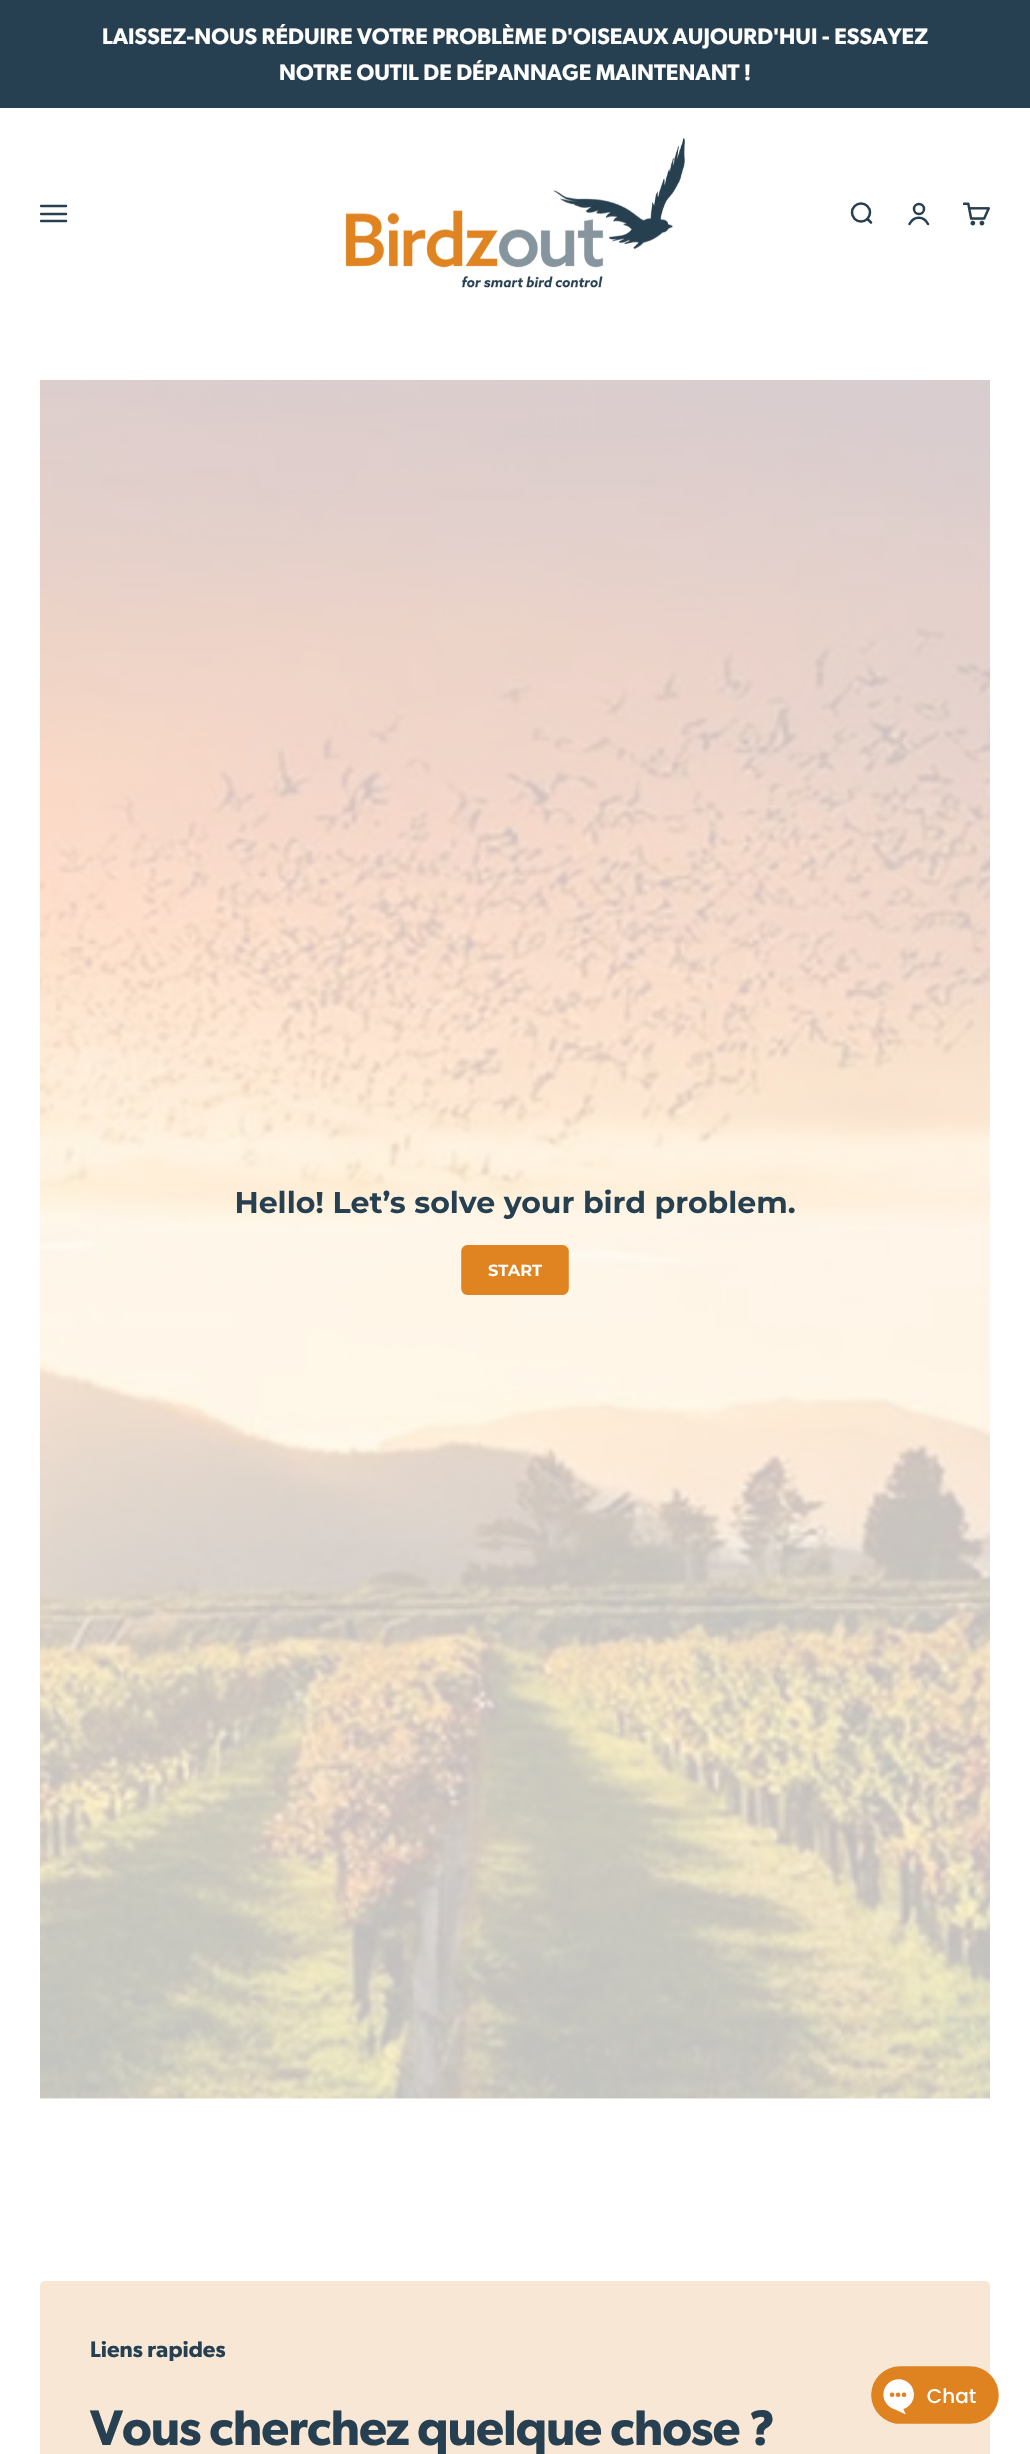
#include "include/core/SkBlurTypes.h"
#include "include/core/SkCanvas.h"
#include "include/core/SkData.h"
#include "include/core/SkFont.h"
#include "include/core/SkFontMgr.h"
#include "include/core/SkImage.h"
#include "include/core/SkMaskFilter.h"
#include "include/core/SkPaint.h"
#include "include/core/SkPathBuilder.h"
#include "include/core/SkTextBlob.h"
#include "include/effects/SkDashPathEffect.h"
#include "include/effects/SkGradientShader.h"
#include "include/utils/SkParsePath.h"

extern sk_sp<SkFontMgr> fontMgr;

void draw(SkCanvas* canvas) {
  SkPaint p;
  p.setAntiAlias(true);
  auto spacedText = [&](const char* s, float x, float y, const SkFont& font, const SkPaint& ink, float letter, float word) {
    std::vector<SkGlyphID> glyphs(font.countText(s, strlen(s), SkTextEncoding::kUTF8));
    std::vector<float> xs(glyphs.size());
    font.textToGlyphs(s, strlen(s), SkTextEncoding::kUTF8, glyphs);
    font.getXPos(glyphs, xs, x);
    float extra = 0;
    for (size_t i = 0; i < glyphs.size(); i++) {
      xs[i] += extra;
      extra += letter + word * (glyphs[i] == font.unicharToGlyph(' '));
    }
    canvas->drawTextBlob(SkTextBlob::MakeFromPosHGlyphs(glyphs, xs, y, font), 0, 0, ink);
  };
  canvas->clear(SK_ColorWHITE);
  p.setColor(SkColorSetRGB(39, 64, 81));
  canvas->drawRect(SkRect::MakeLTRB(0, 0, 1030, 108), p);
  canvas->save();
  canvas->clipRect(SkRect::MakeLTRB(40, 200, 68, 228));
  p.setStyle(SkPaint::kStroke_Style);
  p.setStrokeWidth(2.5f);
  p.setStrokeCap(SkPaint::kRound_Cap);
  canvas->drawPath(SkPathBuilder().moveTo(41, 206).lineTo(66, 206).moveTo(41, 214).lineTo(66, 214).moveTo(41, 221).lineTo(66, 221).detach(), p);
  canvas->restore();
  canvas->drawImageRect(SkImages::DeferredFromEncodedData(SkData::MakeFromFileName("images/1.png")), SkRect::MakeLTRB(345, 138, 685, 288), SkSamplingOptions());
  p.setStrokeCap(SkPaint::kButt_Cap);
  canvas->drawCircle(861, 212.5f, 9, p);
  p.setStrokeCap(SkPaint::kRound_Cap);
  p.setStrokeJoin(SkPaint::kRound_Join);
  canvas->drawPath(SkPathBuilder().moveTo(867.5f, 219).lineTo(871, 222.5f).detach(), p);
  p.setStrokeCap(SkPaint::kButt_Cap);
  p.setStrokeJoin(SkPaint::kMiter_Join);
  canvas->drawCircle(919, 209, 5, p);
  p.setStrokeCap(SkPaint::kRound_Cap);
  canvas->drawPath(SkPathBuilder().moveTo(909.5f, 224).cubicTo(913.5f, 215.5f, 924, 215.5f, 928, 224).detach(), p);
  canvas->drawImageRect(SkImages::DeferredFromEncodedData(SkData::MakeFromFileName("images/2.png")), SkRect::MakeLTRB(963, 202, 990, 226), SkSamplingOptions());
  canvas->drawImageRect(SkImages::DeferredFromEncodedData(SkData::MakeFromFileName("images/3.png")), SkRect::MakeLTRB(40, 380, 990, 2099), SkSamplingOptions());
  p.setStyle(SkPaint::kFill_Style);
  p.setColor(SkColorSetRGB(247, 231, 212));
  canvas->drawRoundRect(SkRect::MakeLTRB(40, 2281, 990, 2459), 5, 5, p);
  canvas->drawImageRect(SkImages::DeferredFromEncodedData(SkData::MakeFromFileName("images/4.png")), SkRect::MakeLTRB(871, 2366, 999, 2424), SkSamplingOptions());
  SkFont font1(fontMgr->matchFamilyStyle("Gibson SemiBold", SkFontStyle(600, SkFontStyle::kNormal_Width, SkFontStyle::kUpright_Slant)), 22.5f);
  font1.setSubpixel(true);
  p.setColor(SK_ColorWHITE);
  canvas->drawString("LAISSEZ-NOUS RÉDUIRE VOTRE PROBLÈME D'OISEAUX AUJOURD'HUI - ESSAYEZ", 102, 44, font1, p);
  canvas->drawString("NOTRE OUTIL DE DÉPANNAGE MAINTENANT !", 279, 80, font1, p);
  p.setColor(SkColorSetRGB(39, 64, 81));
  canvas->drawString("Liens rapides", 90, 2357, font1, p);
  SkFont font2(fontMgr->matchFamilyStyle("Gibson SemiBold", SkFontStyle(600, SkFontStyle::kNormal_Width, SkFontStyle::kUpright_Slant)), 50);
  font2.setSubpixel(true);
  spacedText("Vous cherchez quelque chose ?", 90, 2445, font2, p, -1, 0);
}
